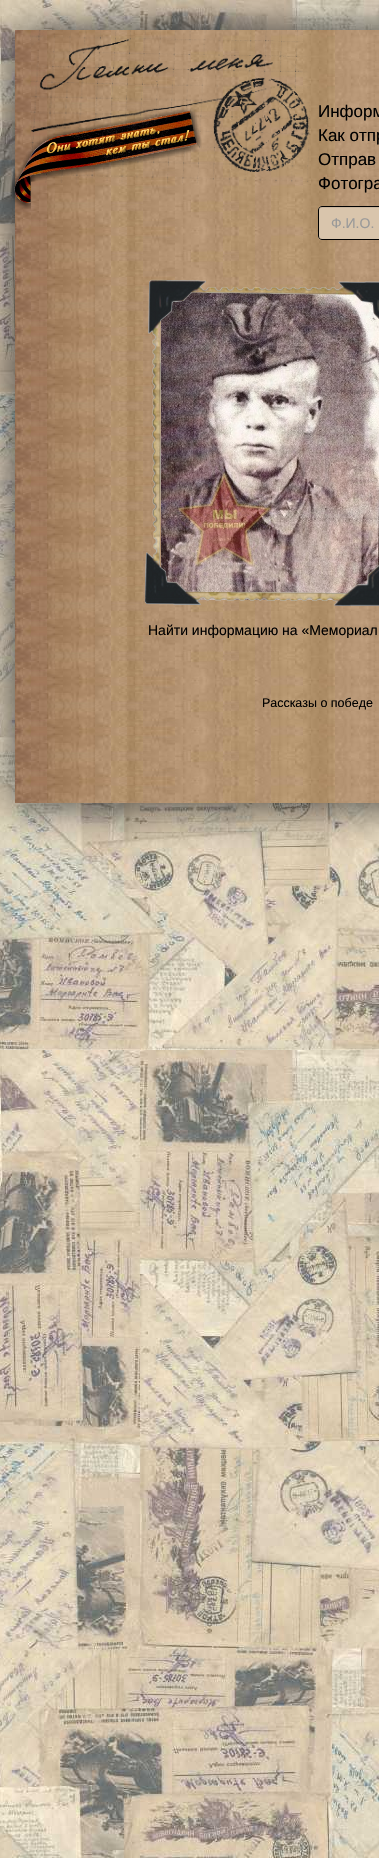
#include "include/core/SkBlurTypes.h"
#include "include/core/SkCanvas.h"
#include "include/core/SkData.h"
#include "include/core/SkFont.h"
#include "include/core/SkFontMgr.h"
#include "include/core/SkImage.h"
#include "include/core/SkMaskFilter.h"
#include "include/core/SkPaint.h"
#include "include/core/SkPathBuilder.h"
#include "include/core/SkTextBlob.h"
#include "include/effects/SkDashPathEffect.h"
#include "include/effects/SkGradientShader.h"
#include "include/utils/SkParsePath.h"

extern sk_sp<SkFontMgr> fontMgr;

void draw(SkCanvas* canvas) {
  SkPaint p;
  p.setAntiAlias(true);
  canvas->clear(SK_ColorWHITE);
  canvas->drawImageRect(SkImages::DeferredFromEncodedData(SkData::MakeFromFileName("images/1.png")), SkRect::MakeLTRB(0, 0, 379, 1858), SkSamplingOptions());
  p.setColor(SkColorSetRGB(51, 51, 51));
  p.setMaskFilter(SkMaskFilter::MakeBlur(kNormal_SkBlurStyle, 22));
  canvas->drawRect(SkRect::MakeLTRB(15, 30, 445, 803), p);
  p.setMaskFilter(nullptr);
  canvas->drawImageRect(SkImages::DeferredFromEncodedData(SkData::MakeFromFileName("images/2.png")), SkRect::MakeLTRB(15, 30, 379, 803), SkSamplingOptions());
  canvas->drawImageRect(SkImages::DeferredFromEncodedData(SkData::MakeFromFileName("images/3.png")), SkRect::MakeLTRB(30, 30, 310, 183), SkSamplingOptions());
  canvas->drawImageRect(SkImages::DeferredFromEncodedData(SkData::MakeFromFileName("images/4.png")), SkRect::MakeLTRB(10, 107, 202, 209), SkSamplingOptions());
  p.setColor(SkColorSetRGB(217, 197, 172));
  canvas->drawPath(SkPathBuilder().moveTo(322, 206).lineTo(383, 206).lineTo(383, 240).lineTo(322, 240).cubicTo(320, 240, 318, 238, 318, 236).lineTo(318, 210).cubicTo(318, 208, 320, 206, 322, 206).close().detach(), p);
  p.setColor(SkColorSetRGB(201, 182, 159));
  canvas->drawPath(SkPathBuilder().moveTo(322, 208).lineTo(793, 208).lineTo(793, 207).lineTo(322, 207).cubicTo(320, 207, 319, 209, 319, 211).cubicTo(319, 209, 320, 208, 322, 208).close().detach(), p);
  p.setStyle(SkPaint::kStroke_Style);
  p.setStrokeWidth(1);
  p.setColor(SK_ColorBLACK);
  canvas->drawPath(SkPathBuilder().moveTo(322, 206.5f).lineTo(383.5f, 206.5f).lineTo(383.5f, 239.5f).lineTo(322, 239.5f).cubicTo(320, 239.5f, 318.5f, 238, 318.5f, 236).lineTo(318.5f, 210).cubicTo(318.5f, 208, 320, 206.5f, 322, 206.5f).close().detach(), p);
  canvas->drawImageRect(SkImages::DeferredFromEncodedData(SkData::MakeFromFileName("images/6.png")), SkRect::MakeLTRB(161, 290, 379, 600), SkSamplingOptions());
  canvas->drawImageRect(SkImages::DeferredFromEncodedData(SkData::MakeFromFileName("images/5.png")), SkRect::MakeLTRB(144, 279, 379, 606), SkSamplingOptions());
  SkFont font1(fontMgr->matchFamilyStyle("Liberation Sans", SkFontStyle::Normal()), 17);
  font1.setSubpixel(true);
  p.setStyle(SkPaint::kFill_Style);
  canvas->drawString("Информ", 318, 117, font1, p);
  canvas->drawString("Как отпр", 318, 141, font1, p);
  canvas->drawString("Отправ", 318, 165, font1, p);
  canvas->drawString("Фотогра", 318, 189, font1, p);
  SkFont font2(fontMgr->matchFamilyStyle("Liberation Sans", SkFontStyle::Normal()), 14);
  font2.setSubpixel(true);
  p.setColor(SkColorSetRGB(153, 153, 153));
  canvas->drawString("Ф.И.О.", 331, 228, font2, p);
  p.setColor(SK_ColorBLACK);
  canvas->drawString("Найти информацию на «Мемориал", 148, 635, font2, p);
  SkFont font3(fontMgr->matchFamilyStyle("Liberation Sans", SkFontStyle::Normal()), 12.5f);
  font3.setSubpixel(true);
  canvas->drawString("Рассказы о победе", 262, 707, font3, p);
}
